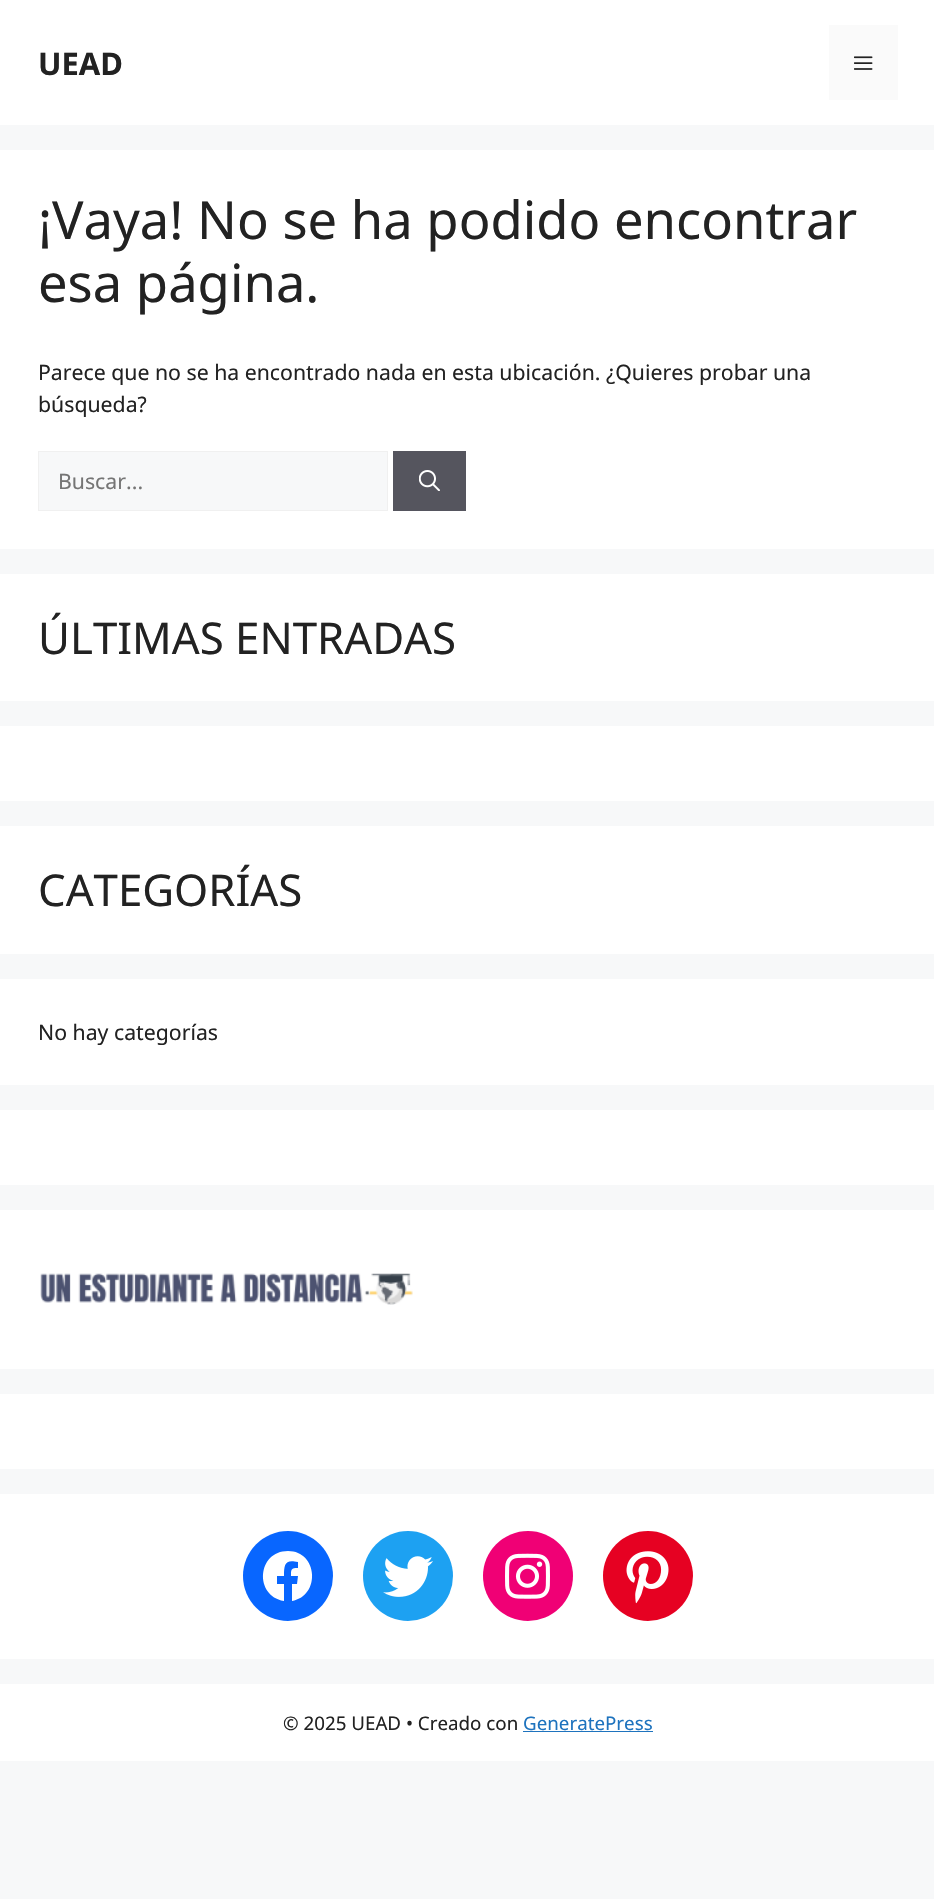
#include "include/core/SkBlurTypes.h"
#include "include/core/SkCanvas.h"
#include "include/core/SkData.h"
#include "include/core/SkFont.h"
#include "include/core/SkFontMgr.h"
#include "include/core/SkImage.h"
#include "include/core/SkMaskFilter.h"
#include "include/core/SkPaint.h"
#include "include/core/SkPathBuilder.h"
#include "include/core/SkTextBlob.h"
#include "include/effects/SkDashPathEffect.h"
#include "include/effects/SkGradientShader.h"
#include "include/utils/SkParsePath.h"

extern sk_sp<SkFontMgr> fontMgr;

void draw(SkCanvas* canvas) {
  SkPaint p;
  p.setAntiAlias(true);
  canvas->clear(SkColorSetRGB(247, 248, 249));
  p.setColor(SK_ColorWHITE);
  canvas->drawRect(SkRect::MakeLTRB(0, 0, 934, 125), p);
  p.setColor(SkColorSetRGB(250, 250, 250));
  canvas->drawRect(SkRect::MakeLTRB(829, 25, 898, 100), p);
  canvas->drawImageRect(SkImages::DeferredFromEncodedData(SkData::MakeFromFileName("images/1.png")), SkRect::MakeLTRB(854, 56, 873, 70), SkSamplingOptions());
  p.setColor(SK_ColorWHITE);
  canvas->drawRect(SkRect::MakeLTRB(0, 150, 934, 549), p);
  p.setColor(SkColorSetRGB(247, 248, 249));
  canvas->drawRect(SkRect::MakeLTRB(38.5f, 451.5f, 387.5f, 510.5f), p);
  p.setStyle(SkPaint::kStroke_Style);
  p.setStrokeWidth(1);
  p.setColor(SkColorSetRGB(240, 240, 240));
  canvas->drawRect(SkRect::MakeLTRB(38.5f, 451.5f, 387.5f, 510.5f), p);
  p.setStyle(SkPaint::kFill_Style);
  p.setColor(SkColorSetRGB(85, 85, 94));
  canvas->drawRect(SkRect::MakeLTRB(393, 451, 466, 511), p);
  canvas->drawImageRect(SkImages::DeferredFromEncodedData(SkData::MakeFromFileName("images/2.png")), SkRect::MakeLTRB(419, 470, 440, 491), SkSamplingOptions());
  p.setColor(SK_ColorWHITE);
  canvas->drawRect(SkRect::MakeLTRB(0, 574, 934, 701), p);
  canvas->drawRect(SkRect::MakeLTRB(0, 726, 934, 801), p);
  canvas->drawRect(SkRect::MakeLTRB(0, 826, 934, 954), p);
  canvas->drawRect(SkRect::MakeLTRB(0, 979, 934, 1085), p);
  canvas->drawRect(SkRect::MakeLTRB(0, 1110, 934, 1185), p);
  canvas->drawRect(SkRect::MakeLTRB(0, 1210, 934, 1369), p);
  canvas->drawImageRect(SkImages::DeferredFromEncodedData(SkData::MakeFromFileName("images/3.png")), SkRect::MakeLTRB(40, 1273, 413, 1305), SkSamplingOptions());
  canvas->drawRect(SkRect::MakeLTRB(0, 1394, 934, 1469), p);
  canvas->drawRect(SkRect::MakeLTRB(0, 1494, 934, 1659), p);
  p.setColor(SkColorSetRGB(8, 102, 255));
  canvas->drawCircle(288, 1576, 45, p);
  p.setColor(SK_ColorWHITE);
  canvas->drawPath(SkPathBuilder().moveTo(288, 1551).cubicTo(257, 1551, 254, 1596, 284, 1601).lineTo(284, 1584).lineTo(277, 1584).lineTo(277, 1576).lineTo(284, 1576).cubicTo(284, 1564, 285, 1559, 298, 1562).lineTo(298, 1568).cubicTo(291, 1568, 291, 1569, 291, 1576).lineTo(298, 1576).lineTo(297, 1584).lineTo(292, 1584).lineTo(292, 1601).cubicTo(321, 1596, 318, 1551, 288, 1551).close().detach(), p);
  p.setColor(SkColorSetRGB(29, 161, 242));
  canvas->drawCircle(408, 1576, 45, p);
  canvas->drawImageRect(SkImages::DeferredFromEncodedData(SkData::MakeFromFileName("images/4.png")), SkRect::MakeLTRB(383, 1556, 433, 1597), SkSamplingOptions());
  p.setColor(SkColorSetRGB(240, 0, 117));
  canvas->drawCircle(528, 1576, 45, p);
  canvas->drawImageRect(SkImages::DeferredFromEncodedData(SkData::MakeFromFileName("images/5.png")), SkRect::MakeLTRB(505, 1553, 550, 1599), SkSamplingOptions());
  p.setColor(SkColorSetRGB(230, 1, 34));
  canvas->drawCircle(648, 1576, 45, p);
  canvas->drawImageRect(SkImages::DeferredFromEncodedData(SkData::MakeFromFileName("images/6.png")), SkRect::MakeLTRB(626, 1551, 669, 1604), SkSamplingOptions());
  p.setColor(SK_ColorWHITE);
  canvas->drawRect(SkRect::MakeLTRB(0, 1684, 934, 1761), p);
  p.setColor(SkColorSetRGB(30, 115, 190));
  canvas->drawRect(SkRect::MakeLTRB(523, 1731, 653, 1732), p);
  SkFont font1(fontMgr->matchFamilyStyle("Noto Sans", SkFontStyle::Bold()), 31);
  font1.setSubpixel(true);
  p.setColor(SkColorSetRGB(34, 34, 34));
  canvas->drawString("UEAD", 38, 75, font1, p);
  SkFont font2(fontMgr->matchFamilyStyle("Noto Sans", SkFontStyle::Normal()), 52.5f);
  font2.setSubpixel(true);
  canvas->drawString("¡Vaya! No se ha podido encontrar", 38, 239, font2, p);
  canvas->drawString("esa página.", 38, 302, font2, p);
  SkFont font3(fontMgr->matchFamilyStyle("Noto Sans", SkFontStyle::Normal()), 21.25f);
  font3.setSubpixel(true);
  canvas->drawString("Parece que no se ha encontrado nada en esta ubicación. ¿Quieres probar una", 38, 380, font3, p);
  canvas->drawString("búsqueda?", 38, 412, font3, p);
  p.setColor(SkColorSetRGB(117, 117, 117));
  canvas->drawString("Buscar...", 58, 489, font3, p);
  SkFont font4(fontMgr->matchFamilyStyle("Noto Sans", SkFontStyle::Normal()), 43.75f);
  font4.setSubpixel(true);
  p.setColor(SkColorSetRGB(34, 34, 34));
  canvas->drawString("ÚLTIMAS ENTRADAS", 38, 654, font4, p);
  canvas->drawString("CATEGORÍAS", 38, 906, font4, p);
  canvas->drawString("No hay categorías", 38, 1040, font3, p);
  SkFont font5(fontMgr->matchFamilyStyle("Noto Sans", SkFontStyle::Normal()), 18.75f);
  font5.setSubpixel(true);
  canvas->drawString("© 2025 UEAD • Creado con", 283, 1730, font5, p);
  p.setColor(SkColorSetRGB(30, 115, 190));
  canvas->drawString("GeneratePress", 523, 1730, font5, p);
}
